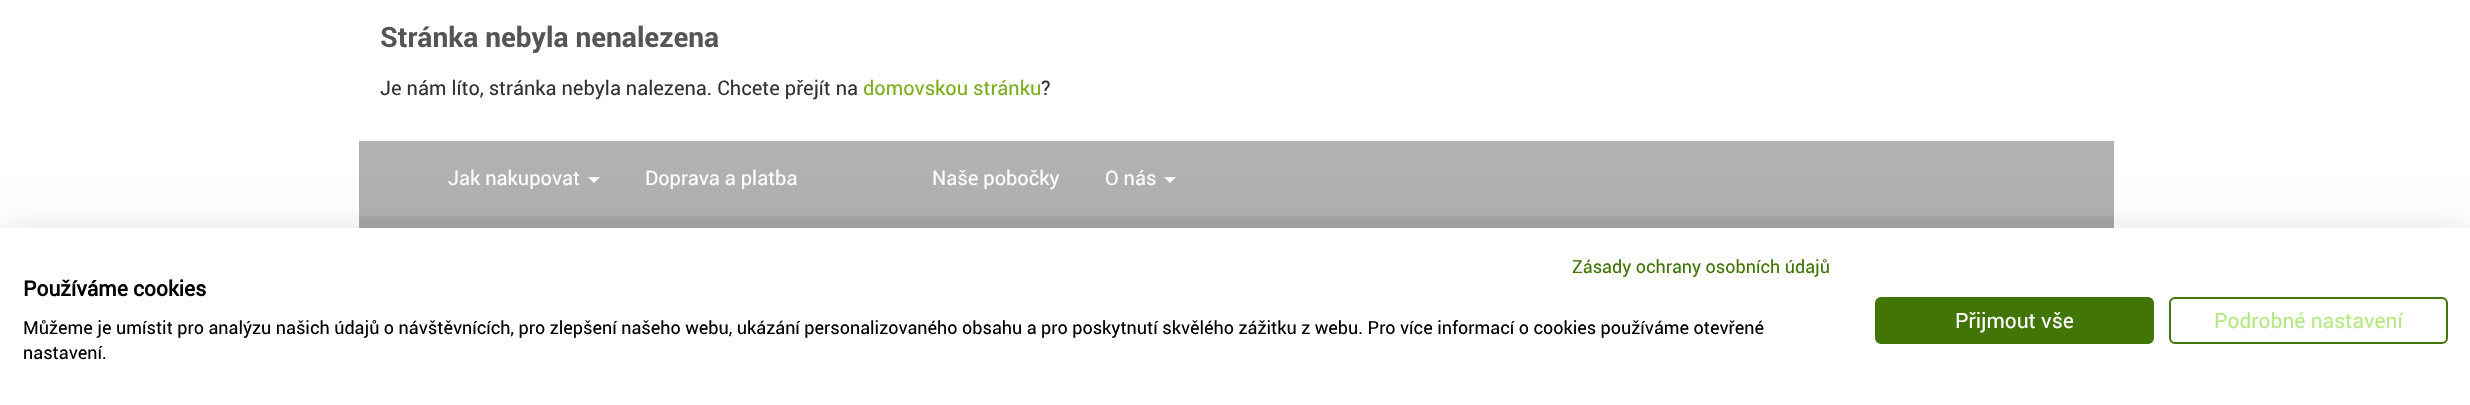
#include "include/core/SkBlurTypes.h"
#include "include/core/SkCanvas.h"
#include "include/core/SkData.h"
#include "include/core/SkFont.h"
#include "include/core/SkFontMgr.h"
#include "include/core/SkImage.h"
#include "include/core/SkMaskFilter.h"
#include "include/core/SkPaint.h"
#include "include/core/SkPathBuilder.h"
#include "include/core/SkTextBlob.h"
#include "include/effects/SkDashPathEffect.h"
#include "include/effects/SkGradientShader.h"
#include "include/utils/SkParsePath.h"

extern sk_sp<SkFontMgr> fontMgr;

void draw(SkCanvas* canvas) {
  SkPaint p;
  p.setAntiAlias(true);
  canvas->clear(SK_ColorWHITE);
  p.setColor(SkColorSetRGB(169, 167, 170));
  canvas->drawRect(SkRect::MakeLTRB(359, 216, 2114, 228), p);
  p.setColor(SkColorSetRGB(178, 176, 179));
  canvas->drawRect(SkRect::MakeLTRB(359, 141, 2114, 216), p);
  p.setColor(SK_ColorWHITE);
  canvas->drawPath(SkPathBuilder().moveTo(588, 177).lineTo(600, 177).lineTo(594, 183).close().detach(), p);
  canvas->drawPath(SkPathBuilder().moveTo(1164, 177).lineTo(1176, 177).lineTo(1170, 183).close().detach(), p);
  p.setColor(SkColorSetARGB(26, 0, 0, 0));
  p.setMaskFilter(SkMaskFilter::MakeBlur(kNormal_SkBlurStyle, 18));
  canvas->drawRect(SkRect::MakeLTRB(0, 228, 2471, 405), p);
  p.setMaskFilter(nullptr);
  p.setColor(SK_ColorWHITE);
  canvas->drawRect(SkRect::MakeLTRB(0, 228, 2470, 405), p);
  p.setColor(SkColorSetRGB(65, 117, 5));
  canvas->drawRoundRect(SkRect::MakeLTRB(1876, 298, 2153, 343), 5, 5, p);
  p.setStyle(SkPaint::kStroke_Style);
  p.setStrokeWidth(2);
  canvas->drawRoundRect(SkRect::MakeLTRB(1876, 298, 2153, 343), 5, 5, p);
  canvas->drawRoundRect(SkRect::MakeLTRB(2170, 298, 2447, 343), 5, 5, p);
  SkFont font1(fontMgr->matchFamilyStyle("Roboto", SkFontStyle::Bold()), 28);
  font1.setSubpixel(true);
  p.setStyle(SkPaint::kFill_Style);
  p.setColor(SkColorSetRGB(85, 85, 85));
  canvas->drawString("Stránka nebyla nenalezena", 380, 47, font1, p);
  SkFont font2(fontMgr->matchFamilyStyle("Roboto", SkFontStyle::Normal()), 20);
  font2.setSubpixel(true);
  p.setColor(SkColorSetRGB(51, 51, 51));
  canvas->drawString("Je nám líto, stránka nebyla nalezena. Chcete přejít na", 380, 95, font2, p);
  p.setColor(SkColorSetRGB(122, 174, 29));
  canvas->drawString("domovskou stránku", 863, 95, font2, p);
  p.setColor(SkColorSetRGB(51, 51, 51));
  canvas->drawString("?", 1041, 95, font2, p);
  p.setColor(SK_ColorWHITE);
  canvas->drawString("Jak nakupovat", 448, 185, font2, p);
  canvas->drawString("Doprava a platba", 645, 185, font2, p);
  canvas->drawString("Naše pobočky", 932, 185, font2, p);
  canvas->drawString("O nás", 1105, 185, font2, p);
  SkFont font3(fontMgr->matchFamilyStyle("Roboto", SkFontStyle::Normal()), 18);
  font3.setSubpixel(true);
  p.setColor(SkColorSetRGB(65, 117, 5));
  canvas->drawString("Zásady ochrany osobních údajů", 1572, 273, font3, p);
  SkFont font4(fontMgr->matchFamilyStyle("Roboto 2", SkFontStyle::Bold()), 21);
  font4.setSubpixel(true);
  p.setColor(SK_ColorBLACK);
  canvas->drawString("Používáme cookies", 23, 296, font4, p);
  canvas->drawString("Můžeme je umístit pro analýzu našich údajů o návštěvnících, pro zlepšení našeho webu, ukázání personalizovaného obsahu a pro poskytnutí skvělého zážitku z webu. Pro více informací o cookies používáme otevřené", 23, 334, font3, p);
  canvas->drawString("nastavení.", 23, 359, font3, p);
  SkFont font5(fontMgr->matchFamilyStyle("Roboto", SkFontStyle::Normal()), 21);
  font5.setSubpixel(true);
  p.setColor(SK_ColorWHITE);
  canvas->drawString("Přijmout vše", 1955, 328, font5, p);
  p.setColor(SkColorSetRGB(184, 233, 134));
  canvas->drawString("Podrobné nastavení", 2214, 328, font5, p);
}
